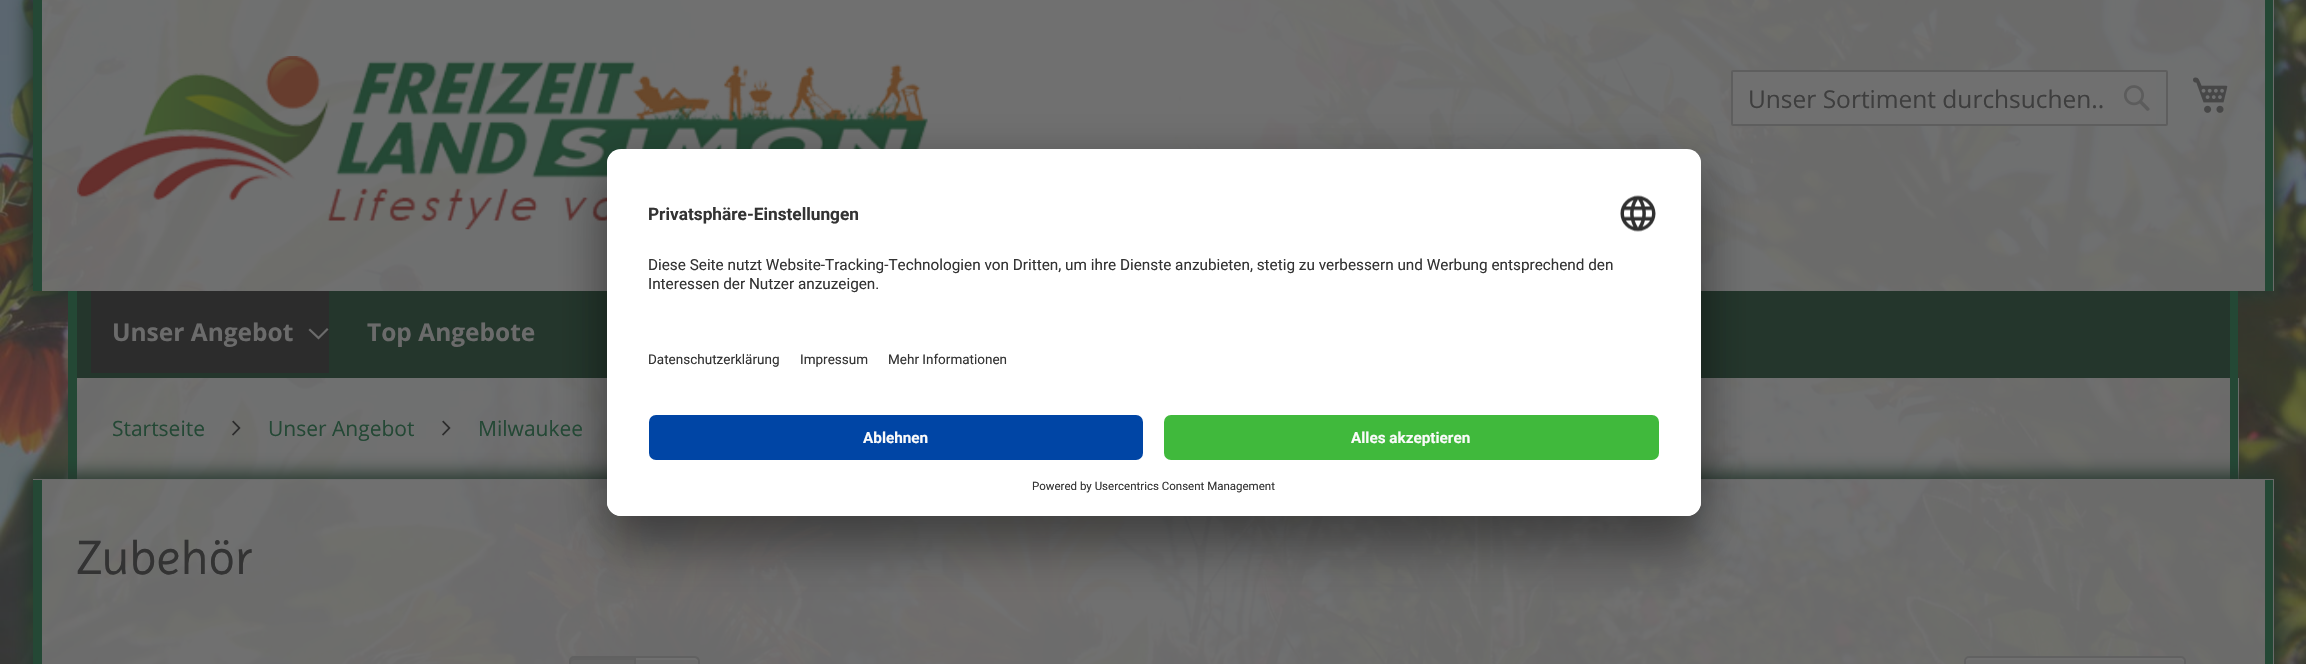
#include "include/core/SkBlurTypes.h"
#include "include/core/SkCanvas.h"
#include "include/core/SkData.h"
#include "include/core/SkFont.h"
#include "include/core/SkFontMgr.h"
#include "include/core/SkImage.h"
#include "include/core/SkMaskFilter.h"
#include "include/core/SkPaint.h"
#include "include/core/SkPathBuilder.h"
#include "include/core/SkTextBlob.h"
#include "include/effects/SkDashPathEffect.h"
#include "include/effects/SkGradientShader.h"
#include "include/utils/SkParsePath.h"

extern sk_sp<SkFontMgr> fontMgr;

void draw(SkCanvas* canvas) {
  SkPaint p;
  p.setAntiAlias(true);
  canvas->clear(SK_ColorWHITE);
  canvas->drawImageRect(SkImages::DeferredFromEncodedData(SkData::MakeFromFileName("images/1.png")), SkRect::MakeLTRB(0, 0, 2306, 664), SkSamplingOptions());
  canvas->save();
  canvas->clipPath(SkPathBuilder(SkPathFillType::kEvenOdd).moveTo(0, 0).lineTo(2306, 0).lineTo(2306, 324).lineTo(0, 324).close().moveTo(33, 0).lineTo(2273, 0).lineTo(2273, 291).lineTo(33, 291).close().detach(), true);
  p.setColor(SkColorSetRGB(36, 54, 44));
  p.setMaskFilter(SkMaskFilter::MakeBlur(kNormal_SkBlurStyle, 9));
  canvas->drawRect(SkRect::MakeLTRB(28, -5, 2279, 296), p);
  p.setMaskFilter(nullptr);
  canvas->restore();
  p.setColor(SkColorSetARGB(230, 112, 112, 112));
  canvas->drawRect(SkRect::MakeLTRB(42, 0, 2274, 291), p);
  p.setColor(SkColorSetRGB(36, 72, 53));
  canvas->drawRect(SkRect::MakeLTRB(2265, 0, 2273, 291), p);
  canvas->drawRect(SkRect::MakeLTRB(33, 0, 42, 291), p);
  canvas->drawImageRect(SkImages::DeferredFromEncodedData(SkData::MakeFromFileName("images/2.png")), SkRect::MakeLTRB(77, 56, 928, 230), SkSamplingOptions());
  p.setColor(SkColorSetRGB(112, 112, 112));
  canvas->drawRect(SkRect::MakeLTRB(1733, 72, 2156, 124), p);
  p.setStyle(SkPaint::kStroke_Style);
  p.setStrokeWidth(2);
  p.setColor(SkColorSetRGB(94, 94, 94));
  canvas->drawRoundRect(SkRect::MakeLTRB(1732, 71, 2167, 125), 1, 1, p);
  canvas->drawImageRect(SkImages::DeferredFromEncodedData(SkData::MakeFromFileName("images/3.png")), SkRect::MakeLTRB(2123, 85, 2150, 111), SkSamplingOptions());
  canvas->drawImageRect(SkImages::DeferredFromEncodedData(SkData::MakeFromFileName("images/4.png")), SkRect::MakeLTRB(2193, 77, 2228, 113), SkSamplingOptions());
  p.setStyle(SkPaint::kFill_Style);
  p.setColor(SkColorSetRGB(36, 54, 44));
  canvas->drawRect(SkRect::MakeLTRB(77, 291, 2230, 378), p);
  p.setColor(SkColorSetRGB(44, 44, 44));
  canvas->drawRect(SkRect::MakeLTRB(91, 291, 329, 373), p);
  p.setColor(SkColorSetRGB(107, 107, 107));
  canvas->drawPath(SkPathBuilder().moveTo(318.5f, 336.5f).lineTo(310, 328.5f).lineTo(308.5f, 330).lineTo(318.5f, 339.5f).lineTo(328.5f, 329.5f).lineTo(327, 328).close().detach(), p);
  p.setColor(SkColorSetARGB(230, 112, 112, 112));
  canvas->drawRect(SkRect::MakeLTRB(77, 378, 2239, 480), p);
  p.setColor(SkColorSetRGB(36, 72, 53));
  canvas->drawRect(SkRect::MakeLTRB(2230, 291, 2238, 480), p);
  canvas->drawRect(SkRect::MakeLTRB(68, 291, 77, 480), p);
  canvas->drawImageRect(SkImages::DeferredFromEncodedData(SkData::MakeFromFileName("images/5.png")), SkRect::MakeLTRB(232, 420, 241, 436), SkSamplingOptions());
  canvas->drawImageRect(SkImages::DeferredFromEncodedData(SkData::MakeFromFileName("images/6.png")), SkRect::MakeLTRB(442, 420, 451, 436), SkSamplingOptions());
  canvas->save();
  canvas->clipPath(SkPathBuilder(SkPathFillType::kEvenOdd).moveTo(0, 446).lineTo(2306, 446).lineTo(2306, 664).lineTo(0, 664).close().moveTo(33, 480).lineTo(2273, 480).lineTo(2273, 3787).lineTo(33, 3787).close().detach(), true);
  p.setColor(SkColorSetRGB(36, 54, 44));
  p.setMaskFilter(SkMaskFilter::MakeBlur(kNormal_SkBlurStyle, 9));
  canvas->drawRect(SkRect::MakeLTRB(28, 474, 2279, 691), p);
  p.setMaskFilter(nullptr);
  canvas->restore();
  p.setColor(SkColorSetARGB(230, 112, 112, 112));
  canvas->drawRect(SkRect::MakeLTRB(33, 479, 2274, 664), p);
  p.setColor(SkColorSetRGB(36, 72, 53));
  canvas->drawRect(SkRect::MakeLTRB(2265, 480, 2273, 664), p);
  canvas->drawRect(SkRect::MakeLTRB(33, 480, 42, 664), p);
  p.setColor(SkColorSetRGB(102, 102, 102));
  canvas->drawPath(SkPathBuilder().moveTo(574, 656).lineTo(634, 656).lineTo(634, 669).lineTo(574, 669).cubicTo(571, 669, 569, 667, 569, 664).lineTo(569, 661).cubicTo(569, 658, 571, 656, 574, 656).close().detach(), p);
  p.setColor(SkColorSetRGB(98, 98, 98));
  canvas->drawPath(SkPathBuilder().moveTo(574, 660).lineTo(634, 660).lineTo(634, 658).lineTo(575, 658).cubicTo(573, 658, 571, 660, 571, 662).lineTo(571, 663).lineTo(572, 661).close().detach(), p);
  p.setColor(SkColorSetRGB(97, 97, 97));
  canvas->drawPath(SkPathBuilder(SkPathFillType::kEvenOdd).moveTo(574, 656).lineTo(634, 656).lineTo(634, 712).lineTo(574, 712).cubicTo(571, 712, 569, 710, 569, 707).lineTo(569, 662).cubicTo(569, 659, 571, 656, 574, 656).close().moveTo(574, 658).lineTo(634, 658).lineTo(634, 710).cubicTo(627, 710, 574, 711, 572, 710).lineTo(571, 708).lineTo(571, 661).lineTo(572, 659).close().detach(), p);
  p.setColor(SkColorSetRGB(112, 112, 112));
  canvas->drawPath(SkPathBuilder().moveTo(635, 660).lineTo(695, 660).cubicTo(697, 660, 698, 661, 698, 663).lineTo(698, 662).cubicTo(698, 660, 696, 658, 694, 658).lineTo(635, 658).close().detach(), p);
  p.setStyle(SkPaint::kStroke_Style);
  p.setColor(SkColorSetRGB(97, 97, 97));
  canvas->drawPath(SkPathBuilder().moveTo(635, 657).lineTo(695, 657).cubicTo(697, 657, 699, 659, 699, 661).lineTo(699, 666).cubicTo(699, 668, 697, 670, 695, 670).lineTo(635, 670).close().detach(), p);
  p.setStyle(SkPaint::kFill_Style);
  p.setColor(SkColorSetRGB(108, 108, 108));
  canvas->drawRoundRect(SkRect::MakeLTRB(1965, 658, 2184, 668), 4, 4, p);
  p.setColor(SkColorSetRGB(112, 112, 112));
  canvas->drawPath(SkPathBuilder().moveTo(1969, 660).lineTo(2180, 660).cubicTo(2182, 660, 2184, 661, 2184, 663).cubicTo(2184, 660, 2183, 658, 2180, 658).lineTo(1967, 658).cubicTo(1965, 659, 1965, 661, 1965, 663).cubicTo(1965, 661, 1967, 660, 1969, 660).close().detach(), p);
  p.setStyle(SkPaint::kStroke_Style);
  p.setColor(SkColorSetRGB(97, 97, 97));
  canvas->drawRoundRect(SkRect::MakeLTRB(1965, 657, 2185, 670), 4, 4, p);
  p.setStyle(SkPaint::kFill_Style);
  p.setColor(SkColorSetARGB(77, 0, 0, 0));
  p.setMaskFilter(SkMaskFilter::MakeBlur(kNormal_SkBlurStyle, 24.5f));
  canvas->drawRoundRect(SkRect::MakeLTRB(607, 184, 1701, 551), 14, 14, p);
  p.setMaskFilter(nullptr);
  p.setColor(SkColorSetARGB(56, 0, 0, 0));
  p.setMaskFilter(SkMaskFilter::MakeBlur(kNormal_SkBlurStyle, 23));
  canvas->drawRoundRect(SkRect::MakeLTRB(607, 158, 1701, 525), 14, 14, p);
  p.setMaskFilter(nullptr);
  p.setColor(SK_ColorWHITE);
  canvas->drawRoundRect(SkRect::MakeLTRB(607, 149, 1701, 516), 14, 14, p);
  canvas->save();
  canvas->clipPath(SkPathBuilder().moveTo(621, 149).lineTo(1687, 149).cubicTo(1694.5f, 149, 1701, 155.5f, 1701, 163).lineTo(1701, 502).cubicTo(1701, 509.5f, 1694.5f, 516, 1687, 516).lineTo(621, 516).cubicTo(613.5f, 516, 607, 509.5f, 607, 502).lineTo(607, 163).cubicTo(607, 155.5f, 613.5f, 149, 621, 149).close().detach(), true);
  canvas->clipPath(SkPathBuilder().moveTo(621, 149).lineTo(1687, 149).cubicTo(1694.5f, 149, 1701, 155.5f, 1701, 163).lineTo(1701, 401).lineTo(607, 401).lineTo(607, 163).cubicTo(607, 155.5f, 613.5f, 149, 621, 149).close().detach(), true);
  canvas->drawRect(SkRect::MakeLTRB(607, 151, 1701, 401), p);
  canvas->restore();
  canvas->drawImageRect(SkImages::DeferredFromEncodedData(SkData::MakeFromFileName("images/7.png")), SkRect::MakeLTRB(1620, 195, 1656, 232), SkSamplingOptions());
  canvas->drawPath(SkPathBuilder().moveTo(607, 401).lineTo(1701, 401).lineTo(1701, 502).cubicTo(1701, 509.5f, 1694.5f, 516, 1687, 516).lineTo(621, 516).cubicTo(613.5f, 516, 607, 509.5f, 607, 502).close().detach(), p);
  p.setColor(SkColorSetRGB(0, 69, 165));
  canvas->drawRoundRect(SkRect::MakeLTRB(649, 415, 1143, 460), 7, 7, p);
  p.setColor(SkColorSetRGB(64, 185, 60));
  canvas->drawRoundRect(SkRect::MakeLTRB(1164, 415, 1659, 460), 7, 7, p);
  SkFont font1(fontMgr->matchFamilyStyle("Open Sans", SkFontStyle::Normal()), 24.5f);
  font1.setSubpixel(true);
  p.setColor(SkColorSetRGB(62, 62, 62));
  canvas->drawString("Unser Sortiment durchsuchen..", 1748, 108, font1, p);
  SkFont font2(fontMgr->matchFamilyStyle("Open Sans", SkFontStyle::Bold()), 24.5f);
  font2.setSubpixel(true);
  p.setColor(SkColorSetRGB(107, 107, 107));
  canvas->drawString("Unser Angebot", 112, 341, font2, p);
  canvas->drawString("Top Angebote", 367, 341, font2, p);
  SkFont font3(fontMgr->matchFamilyStyle("Open Sans", SkFontStyle::Normal()), 21);
  font3.setSubpixel(true);
  p.setColor(SkColorSetRGB(36, 72, 53));
  canvas->drawString("Startseite", 112, 436, font3, p);
  canvas->drawString("Unser Angebot", 268, 436, font3, p);
  canvas->drawString("Milwaukee", 478, 436, font3, p);
  SkFont font4(fontMgr->matchFamilyStyle("Imprima", SkFontStyle::Normal()), 49);
  font4.setSubpixel(true);
  p.setColor(SkColorSetRGB(51, 51, 51));
  canvas->drawString("Zubehör", 77, 574, font4, p);
  SkFont font5(fontMgr->matchFamilyStyle("Roboto", SkFontStyle::Bold()), 17.25f);
  font5.setSubpixel(true);
  canvas->drawString("Privatsphäre-Einstellungen", 648, 220, font5, p);
  SkFont font6(fontMgr->matchFamilyStyle("Roboto", SkFontStyle::Normal()), 15.3f);
  font6.setSubpixel(true);
  canvas->drawString("Diese Seite nutzt Website-Tracking-Technologien von Dritten, um ihre Dienste anzubieten, stetig zu verbessern und Werbung entsprechend den", 648, 270, font6, p);
  canvas->drawString("Interessen der Nutzer anzuzeigen.", 648, 289, font6, p);
  SkFont font7(fontMgr->matchFamilyStyle("Roboto", SkFontStyle::Normal()), 13.5f);
  font7.setSubpixel(true);
  canvas->drawString("Datenschutzerklärung", 648, 364, font7, p);
  canvas->drawString("Impressum", 800, 364, font7, p);
  canvas->drawString("Mehr Informationen", 888, 364, font7, p);
  SkFont font8(fontMgr->matchFamilyStyle("Roboto", SkFontStyle::Bold()), 15.3f);
  font8.setSubpixel(true);
  p.setColor(SkColorSetRGB(250, 250, 250));
  canvas->drawString("Ablehnen", 863, 443, font8, p);
  canvas->drawString("Alles akzeptieren", 1351, 443, font8, p);
  SkFont font9(fontMgr->matchFamilyStyle("Roboto", SkFontStyle::Normal()), 11.5f);
  font9.setSubpixel(true);
  p.setColor(SkColorSetRGB(51, 51, 51));
  canvas->drawString("Powered by Usercentrics Consent Management", 1032, 490, font9, p);
}
